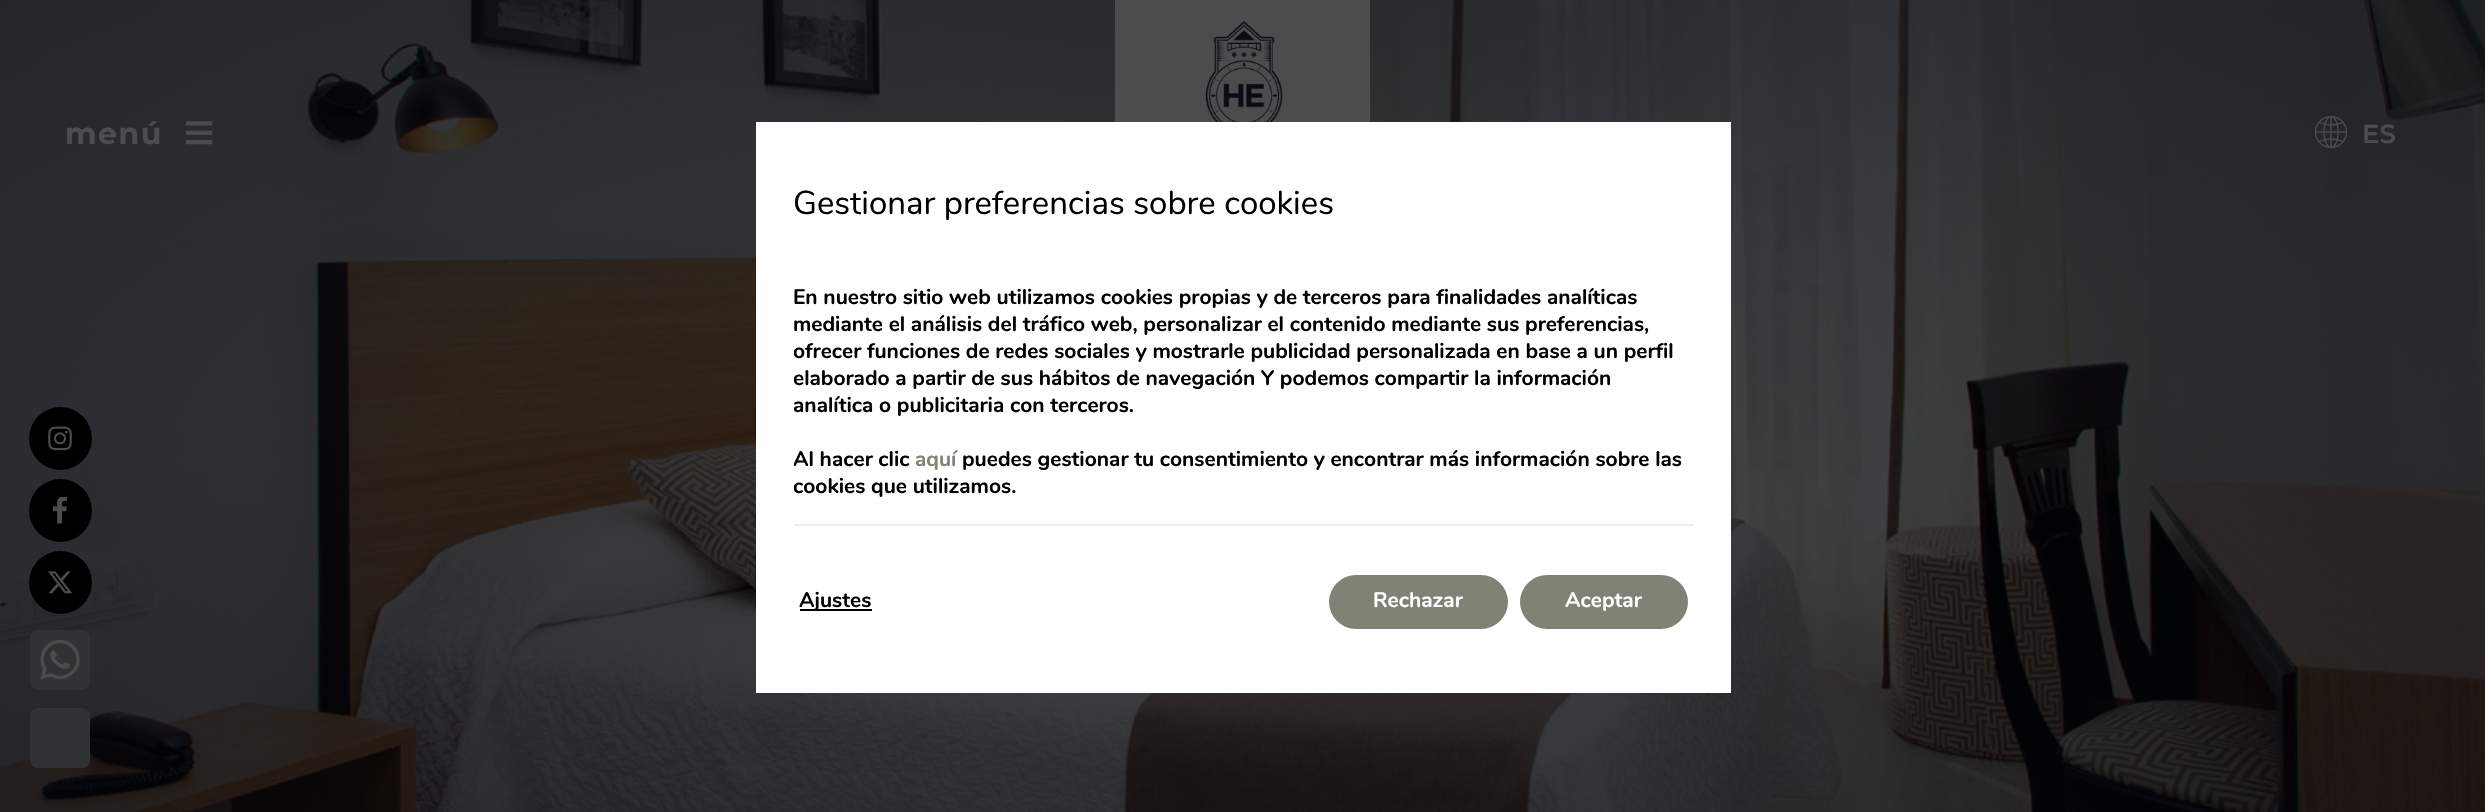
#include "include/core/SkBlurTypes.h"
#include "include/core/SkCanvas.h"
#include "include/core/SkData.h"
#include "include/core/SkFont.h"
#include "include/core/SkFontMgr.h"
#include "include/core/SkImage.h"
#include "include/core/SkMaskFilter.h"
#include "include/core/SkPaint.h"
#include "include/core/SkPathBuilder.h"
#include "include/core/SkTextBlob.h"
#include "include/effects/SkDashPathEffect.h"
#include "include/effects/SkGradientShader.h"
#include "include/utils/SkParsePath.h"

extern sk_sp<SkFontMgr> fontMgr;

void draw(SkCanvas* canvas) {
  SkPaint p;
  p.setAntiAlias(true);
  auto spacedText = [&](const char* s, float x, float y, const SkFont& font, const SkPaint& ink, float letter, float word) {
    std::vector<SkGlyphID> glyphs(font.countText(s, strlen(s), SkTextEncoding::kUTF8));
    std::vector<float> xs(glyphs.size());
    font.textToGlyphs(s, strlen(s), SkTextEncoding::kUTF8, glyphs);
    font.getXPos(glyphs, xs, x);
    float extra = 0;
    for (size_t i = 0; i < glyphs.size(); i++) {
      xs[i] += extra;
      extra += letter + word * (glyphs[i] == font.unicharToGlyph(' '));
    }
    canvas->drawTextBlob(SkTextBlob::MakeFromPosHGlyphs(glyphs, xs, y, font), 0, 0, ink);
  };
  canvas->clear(SK_ColorWHITE);
  canvas->drawImageRect(SkImages::DeferredFromEncodedData(SkData::MakeFromFileName("images/1.png")), SkRect::MakeLTRB(0, 0, 2485, 812), SkSamplingOptions());
  p.setColor(SkColorSetRGB(77, 77, 77));
  canvas->drawRect(SkRect::MakeLTRB(1115, 0, 1370, 122), p);
  canvas->drawImageRect(SkImages::DeferredFromEncodedData(SkData::MakeFromFileName("images/2.png")), SkRect::MakeLTRB(1166, 21, 1318, 122), SkSamplingOptions());
  canvas->drawImageRect(SkImages::DeferredFromEncodedData(SkData::MakeFromFileName("images/3.png")), SkRect::MakeLTRB(186, 121, 213, 145), SkSamplingOptions());
  canvas->drawImageRect(SkImages::DeferredFromEncodedData(SkData::MakeFromFileName("images/4.png")), SkRect::MakeLTRB(2315, 116, 2348, 149), SkSamplingOptions());
  p.setColor(SK_ColorBLACK);
  canvas->drawCircle(60.5f, 438.5f, 31.5f, p);
  canvas->drawImageRect(SkImages::DeferredFromEncodedData(SkData::MakeFromFileName("images/5.png")), SkRect::MakeLTRB(48, 426, 72, 451), SkSamplingOptions());
  canvas->drawCircle(60.5f, 510.5f, 31.5f, p);
  canvas->drawImageRect(SkImages::DeferredFromEncodedData(SkData::MakeFromFileName("images/6.png")), SkRect::MakeLTRB(53, 497, 67, 524), SkSamplingOptions());
  canvas->drawCircle(60.5f, 582.5f, 31.5f, p);
  canvas->drawImageRect(SkImages::DeferredFromEncodedData(SkData::MakeFromFileName("images/7.png")), SkRect::MakeLTRB(48, 571, 72, 594), SkSamplingOptions());
  p.setColor(SkColorSetRGB(48, 50, 52));
  canvas->drawRoundRect(SkRect::MakeLTRB(30, 630, 90, 690), 8, 8, p);
  canvas->drawImageRect(SkImages::DeferredFromEncodedData(SkData::MakeFromFileName("images/8.png")), SkRect::MakeLTRB(40, 639, 80, 680), SkSamplingOptions());
  canvas->drawRoundRect(SkRect::MakeLTRB(30, 708, 90, 768), 8, 8, p);
  p.setColor(SK_ColorWHITE);
  canvas->drawRect(SkRect::MakeLTRB(756, 122, 1731, 693), p);
  p.setColor(SkColorSetRGB(238, 238, 238));
  canvas->drawRect(SkRect::MakeLTRB(794, 524, 1694, 526), p);
  p.setColor(SK_ColorBLACK);
  canvas->drawRect(SkRect::MakeLTRB(800, 609, 872, 611), p);
  p.setColor(SkColorSetRGB(127, 130, 116));
  canvas->drawRoundRect(SkRect::MakeLTRB(1329, 575, 1508, 629), 27, 27, p);
  canvas->drawRoundRect(SkRect::MakeLTRB(1520, 575, 1688, 629), 27, 27, p);
  SkFont font1(fontMgr->matchFamilyStyle("Montserrat", SkFontStyle::Bold()), 30);
  font1.setSubpixel(true);
  p.setColor(SkColorSetRGB(77, 77, 77));
  spacedText("menú", 65, 144, font1, p, 1.5f, 0);
  SkFont font2(fontMgr->matchFamilyStyle("Montserrat", SkFontStyle(600, SkFontStyle::kNormal_Width, SkFontStyle::kUpright_Slant)), 26);
  font2.setSubpixel(true);
  canvas->drawString("ES", 2362, 143, font2, p);
  SkFont font3(fontMgr->matchFamilyStyle("Nunito", SkFontStyle::Normal()), 33);
  font3.setSubpixel(true);
  p.setColor(SK_ColorBLACK);
  canvas->drawString("Gestionar preferencias sobre cookies", 793, 214, font3, p);
  SkFont font4(fontMgr->matchFamilyStyle("Nunito", SkFontStyle::Bold()), 21);
  font4.setSubpixel(true);
  canvas->drawString("En nuestro sitio web utilizamos cookies propias y de terceros para finalidades analíticas", 793, 304, font4, p);
  canvas->drawString("mediante el análisis del tráfico web, personalizar el contenido mediante sus preferencias,", 793, 331, font4, p);
  canvas->save();
  canvas->clipRect(SkRect::MakeLTRB(794, 182, 1694, 509));
  canvas->drawString("ofrecer funciones de redes sociales y mostrarle publicidad personalizada en base a un perfil", 793, 358, font4, p);
  canvas->drawString("elaborado a partir de sus hábitos de navegación Y podemos compartir la información", 793, 385, font4, p);
  canvas->restore();
  canvas->drawString("analítica o publicitaria con terceros.", 793, 412, font4, p);
  canvas->save();
  canvas->clipRect(SkRect::MakeLTRB(794, 182, 1694, 509));
  canvas->drawString("Al hacer clic", 793, 466, font4, p);
  canvas->restore();
  p.setColor(SkColorSetRGB(127, 130, 116));
  canvas->drawString("aquí", 915, 466, font4, p);
  p.setColor(SK_ColorBLACK);
  canvas->drawString("puedes gestionar tu consentimiento y encontrar más información sobre las", 962, 466, font4, p);
  canvas->save();
  canvas->clipRect(SkRect::MakeLTRB(794, 182, 1694, 509));
  canvas->drawString("cookies que utilizamos.", 793, 493, font4, p);
  canvas->restore();
  canvas->drawString("Ajustes", 799, 607, font4, p);
  p.setColor(SK_ColorWHITE);
  canvas->drawString("Rechazar", 1373, 607, font4, p);
  canvas->drawString("Aceptar", 1565, 607, font4, p);
}
